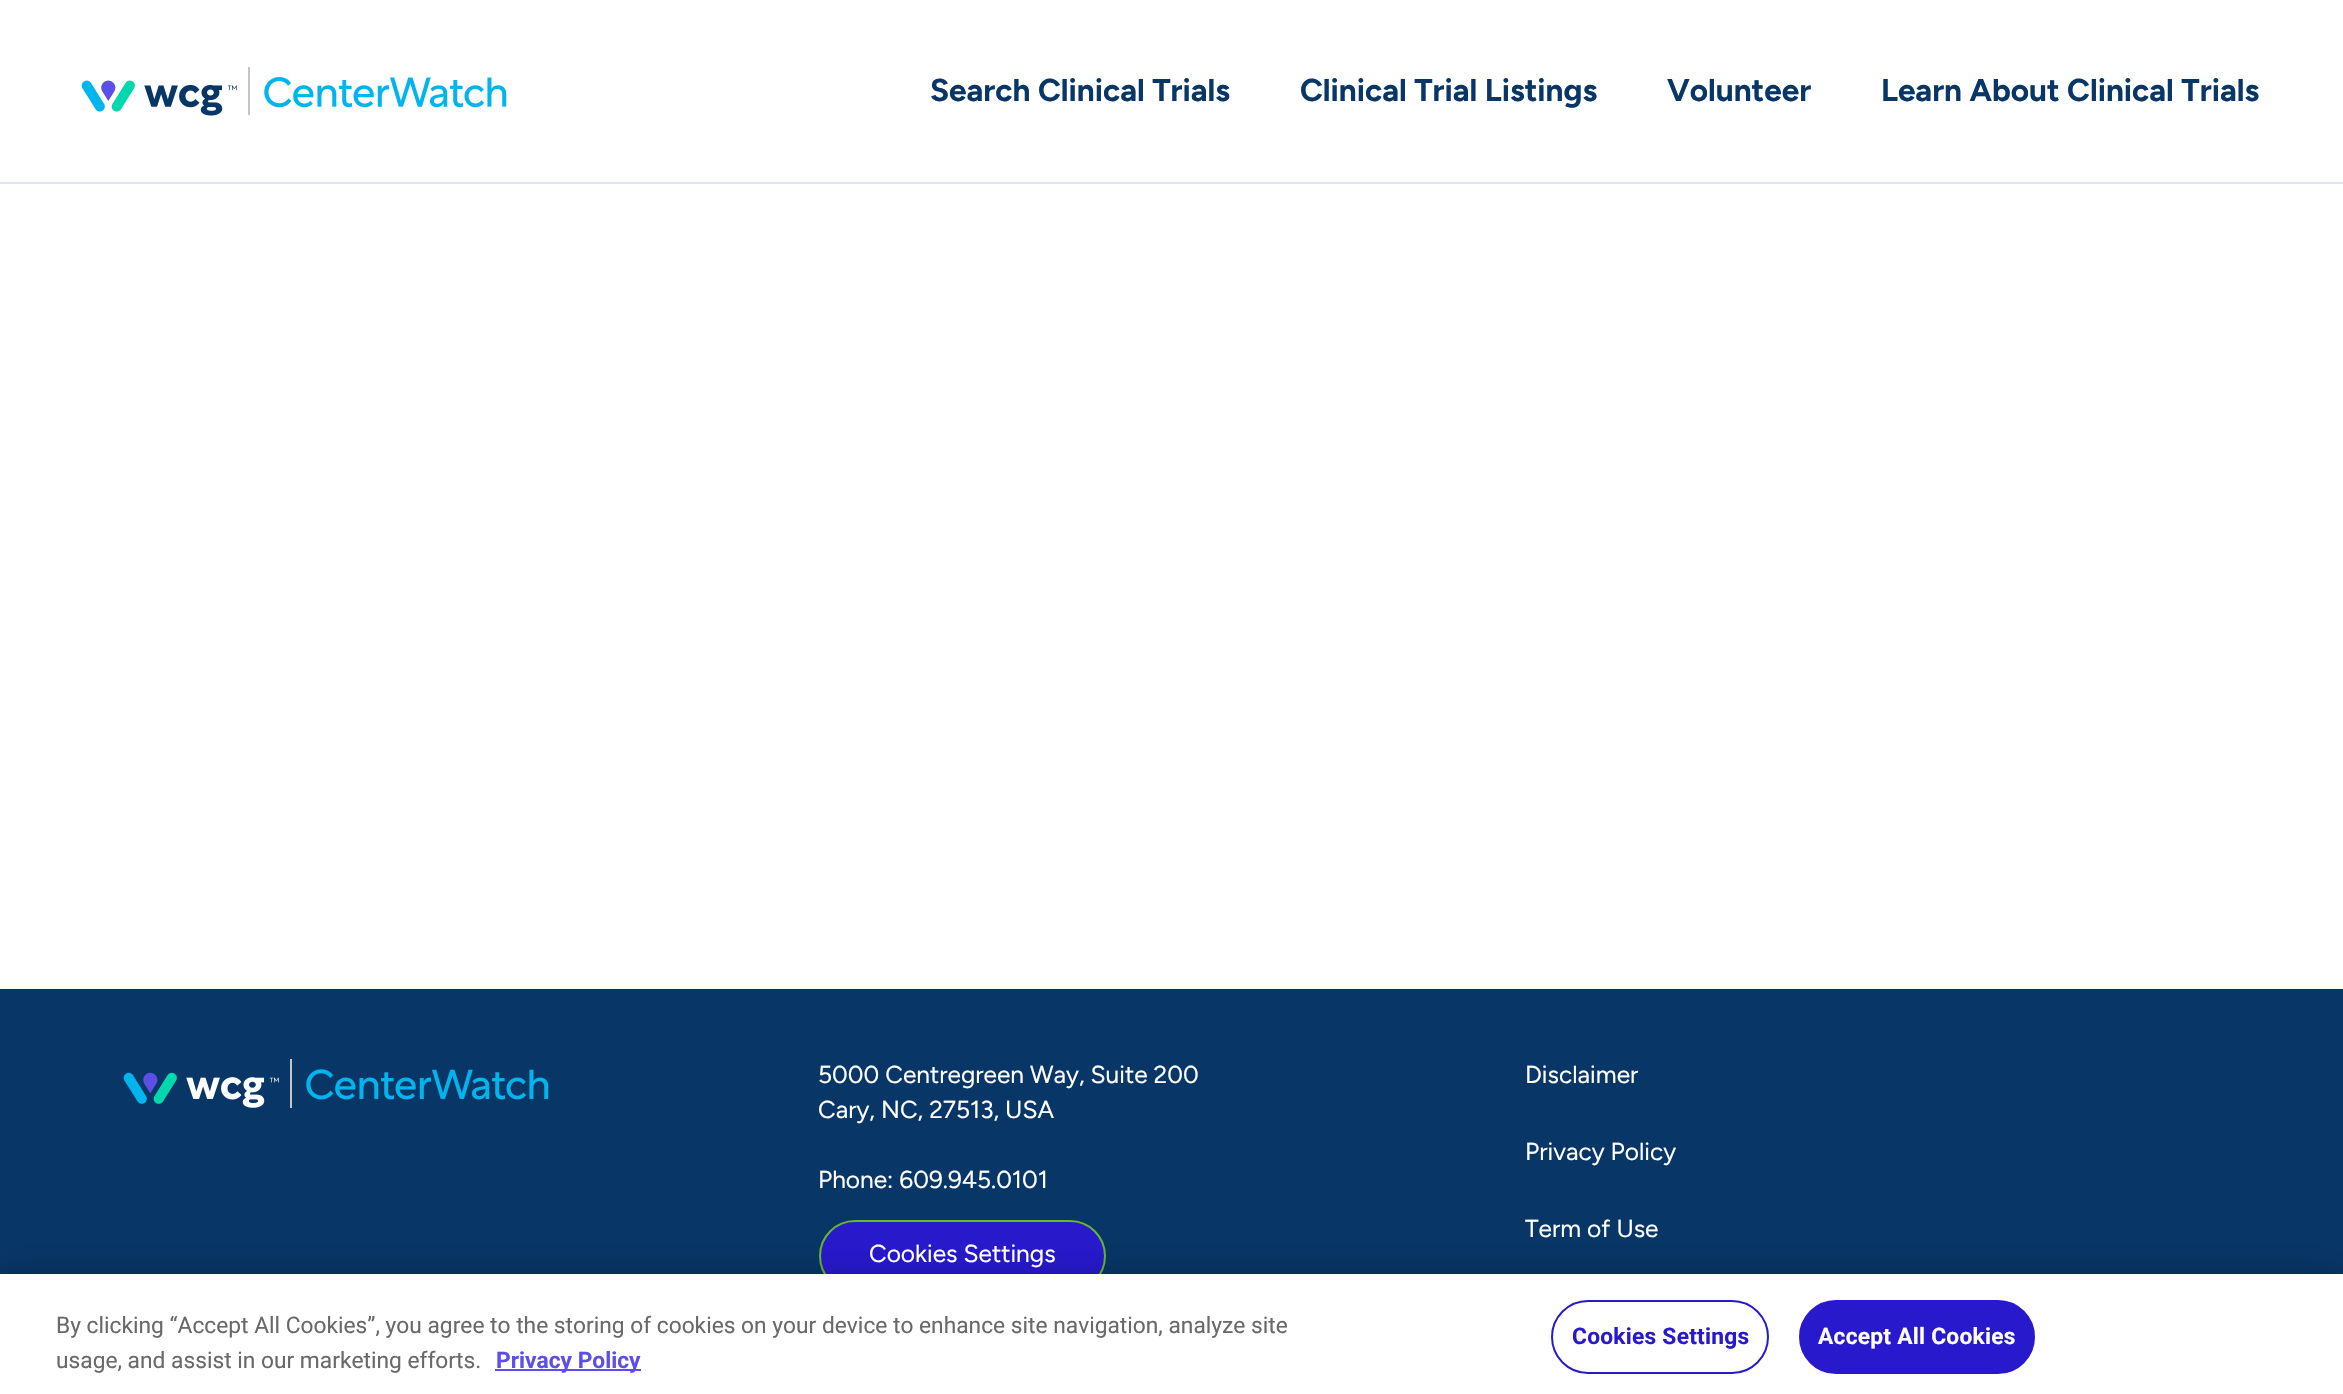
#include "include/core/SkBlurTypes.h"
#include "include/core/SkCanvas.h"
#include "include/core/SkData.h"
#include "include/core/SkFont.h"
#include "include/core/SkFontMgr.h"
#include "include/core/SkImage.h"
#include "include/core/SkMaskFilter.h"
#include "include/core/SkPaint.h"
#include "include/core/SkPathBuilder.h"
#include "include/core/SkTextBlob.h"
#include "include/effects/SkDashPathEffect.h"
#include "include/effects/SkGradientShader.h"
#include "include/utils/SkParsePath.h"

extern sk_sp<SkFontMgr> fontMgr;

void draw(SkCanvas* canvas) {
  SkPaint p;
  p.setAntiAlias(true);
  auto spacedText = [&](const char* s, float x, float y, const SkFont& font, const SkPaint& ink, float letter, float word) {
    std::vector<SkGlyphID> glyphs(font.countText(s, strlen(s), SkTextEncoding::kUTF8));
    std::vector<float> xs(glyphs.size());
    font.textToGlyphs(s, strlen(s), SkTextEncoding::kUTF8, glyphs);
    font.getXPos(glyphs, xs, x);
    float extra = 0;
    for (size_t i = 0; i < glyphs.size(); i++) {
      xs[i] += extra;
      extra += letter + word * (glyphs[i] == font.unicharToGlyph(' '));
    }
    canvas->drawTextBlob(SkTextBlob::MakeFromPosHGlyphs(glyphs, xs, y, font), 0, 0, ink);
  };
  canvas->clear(SK_ColorWHITE);
  p.setColor(SkColorSetRGB(222, 229, 237));
  canvas->drawRect(SkRect::MakeLTRB(0, 182, 2343, 184), p);
  canvas->drawImageRect(SkImages::DeferredFromEncodedData(SkData::MakeFromFileName("images/1.png")), SkRect::MakeLTRB(81, 67, 507, 116), SkSamplingOptions());
  p.setColor(SkColorSetRGB(8, 54, 102));
  canvas->drawRect(SkRect::MakeLTRB(0, 989, 2343, 1274), p);
  canvas->drawImageRect(SkImages::DeferredFromEncodedData(SkData::MakeFromFileName("images/2.png")), SkRect::MakeLTRB(123, 1059, 549, 1108), SkSamplingOptions());
  p.setColor(SkColorSetRGB(40, 25, 204));
  canvas->drawRoundRect(SkRect::MakeLTRB(820, 1221, 1105, 1291), 35, 35, p);
  p.setStyle(SkPaint::kStroke_Style);
  p.setStrokeWidth(2);
  p.setColor(SkColorSetRGB(104, 182, 49));
  canvas->drawRoundRect(SkRect::MakeLTRB(820, 1221, 1105, 1291), 35, 35, p);
  p.setStyle(SkPaint::kFill_Style);
  p.setColor(SkColorSetARGB(51, 0, 0, 0));
  p.setMaskFilter(SkMaskFilter::MakeBlur(kNormal_SkBlurStyle, 16));
  canvas->drawRect(SkRect::MakeLTRB(0, 1274, 2343, 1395), p);
  p.setMaskFilter(nullptr);
  p.setColor(SK_ColorWHITE);
  canvas->drawRect(SkRect::MakeLTRB(0, 1274, 2343, 1394), p);
  p.setColor(SkColorSetRGB(92, 79, 231));
  canvas->drawRect(SkRect::MakeLTRB(495, 1369, 641, 1371), p);
  p.setStyle(SkPaint::kStroke_Style);
  p.setColor(SkColorSetRGB(40, 25, 204));
  canvas->drawRoundRect(SkRect::MakeLTRB(1552, 1301, 1768, 1373), 36, 36, p);
  p.setStyle(SkPaint::kFill_Style);
  canvas->drawRoundRect(SkRect::MakeLTRB(1800, 1301, 2034, 1373), 36, 36, p);
  p.setStyle(SkPaint::kStroke_Style);
  canvas->drawRoundRect(SkRect::MakeLTRB(1800, 1301, 2034, 1373), 36, 36, p);
  SkFont font1(fontMgr->matchFamilyStyle("Figtree", SkFontStyle::Bold()), 31.5f);
  font1.setSubpixel(true);
  p.setStyle(SkPaint::kFill_Style);
  p.setColor(SkColorSetRGB(8, 54, 102));
  canvas->drawString("Search Clinical Trials", 930, 101, font1, p);
  canvas->drawString("Clinical Trial Listings", 1300, 101, font1, p);
  canvas->drawString("Volunteer", 1667, 101, font1, p);
  canvas->drawString("Learn About Clinical Trials", 1881, 101, font1, p);
  SkFont font2(fontMgr->matchFamilyStyle("Figtree", SkFontStyle::Normal()), 24.5f);
  font2.setSubpixel(true);
  p.setColor(SK_ColorWHITE);
  canvas->drawString("5000 Centregreen Way, Suite 200", 818, 1083, font2, p);
  canvas->drawString("Cary, NC, 27513, USA", 818, 1118, font2, p);
  canvas->drawString("Phone: 609.945.0101", 818, 1188, font2, p);
  canvas->drawString("Cookies Settings", 869, 1262, font2, p);
  canvas->drawString("Disclaimer", 1525, 1083, font2, p);
  canvas->drawString("Privacy Policy", 1525, 1160, font2, p);
  canvas->drawString("Term of Use", 1525, 1237, font2, p);
  SkFont font3(fontMgr->matchFamilyStyle("Roboto", SkFontStyle::Normal()), 22.75f);
  font3.setSubpixel(true);
  p.setColor(SkColorSetRGB(105, 105, 105));
  canvas->drawString("By clicking “Accept All Cookies”, you agree to the storing of cookies on your device to enhance site navigation, analyze site", 56, 1333, font3, p);
  canvas->drawString("usage, and assist in our marketing efforts.", 56, 1368, font3, p);
  SkFont font4(fontMgr->matchFamilyStyle("Roboto", SkFontStyle::Bold()), 22.75f);
  font4.setSubpixel(true);
  p.setColor(SkColorSetRGB(92, 79, 231));
  canvas->drawString("Privacy Policy", 496, 1368, font4, p);
  p.setColor(SkColorSetRGB(40, 25, 204));
  spacedText("Cookies Settings", 1572, 1344, font4, p, 0.25f, 0);
  p.setColor(SK_ColorWHITE);
  spacedText("Accept All Cookies", 1818, 1344, font4, p, 0.25f, 0);
}
